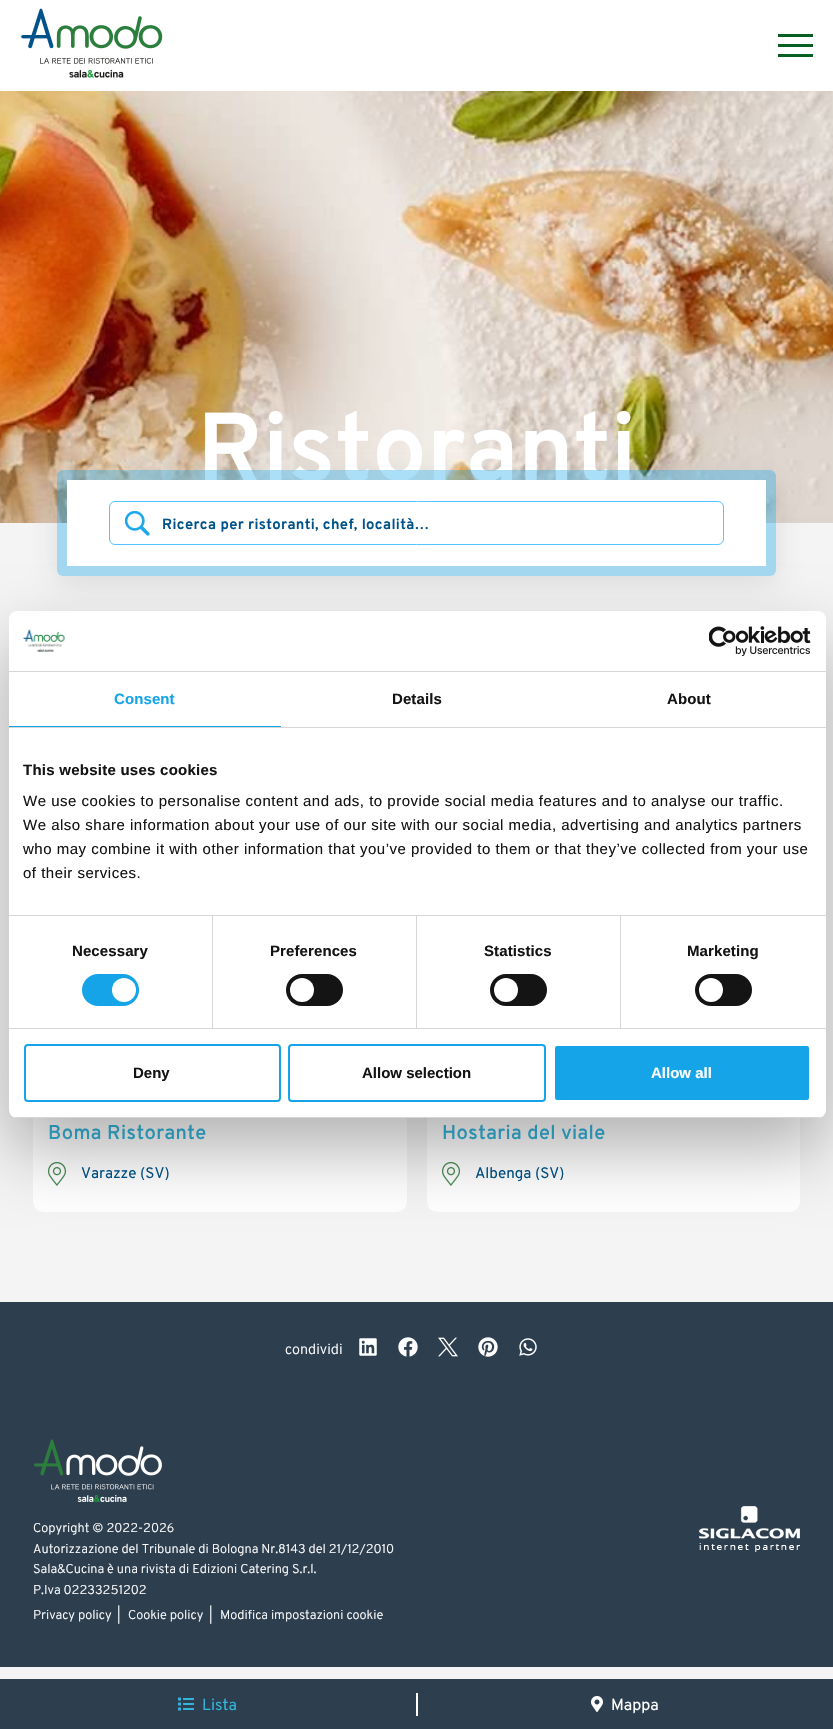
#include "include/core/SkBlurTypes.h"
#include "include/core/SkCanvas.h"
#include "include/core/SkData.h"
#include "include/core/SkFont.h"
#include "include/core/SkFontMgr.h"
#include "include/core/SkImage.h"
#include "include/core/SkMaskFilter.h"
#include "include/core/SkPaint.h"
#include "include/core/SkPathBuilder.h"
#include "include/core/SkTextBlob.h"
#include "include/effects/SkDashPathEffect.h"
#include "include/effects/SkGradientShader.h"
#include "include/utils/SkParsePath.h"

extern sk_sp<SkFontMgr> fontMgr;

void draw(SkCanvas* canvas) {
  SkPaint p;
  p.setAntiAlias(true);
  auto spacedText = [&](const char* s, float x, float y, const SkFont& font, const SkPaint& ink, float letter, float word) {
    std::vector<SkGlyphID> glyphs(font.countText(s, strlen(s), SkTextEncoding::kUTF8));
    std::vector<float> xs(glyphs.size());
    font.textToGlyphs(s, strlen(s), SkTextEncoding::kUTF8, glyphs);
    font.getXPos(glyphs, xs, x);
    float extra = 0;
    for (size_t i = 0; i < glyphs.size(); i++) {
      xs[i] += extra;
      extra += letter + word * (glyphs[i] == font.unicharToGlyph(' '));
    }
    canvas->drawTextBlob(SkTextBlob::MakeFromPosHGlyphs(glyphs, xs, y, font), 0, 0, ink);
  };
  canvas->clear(SkColorSetRGB(244, 244, 244));
  p.setColor(SK_ColorWHITE);
  canvas->drawRect(SkRect::MakeLTRB(0, 0, 833, 91), p);
  canvas->drawImageRect(SkImages::DeferredFromEncodedData(SkData::MakeFromFileName("images/1.png")), SkRect::MakeLTRB(21, 8, 163, 78), SkSamplingOptions());
  p.setColor(SkColorSetRGB(7, 96, 31));
  canvas->drawRect(SkRect::MakeLTRB(778, 34, 813, 37), p);
  canvas->drawRect(SkRect::MakeLTRB(778, 44, 813, 47), p);
  canvas->drawRect(SkRect::MakeLTRB(778, 54, 813, 57), p);
  canvas->drawImageRect(SkImages::DeferredFromEncodedData(SkData::MakeFromFileName("images/2.png")), SkRect::MakeLTRB(0, 91, 833, 523), SkSamplingOptions());
  canvas->save();
  canvas->clipPath(SkPathBuilder(SkPathFillType::kEvenOdd).moveTo(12, 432).lineTo(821, 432).lineTo(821, 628).lineTo(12, 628).close().moveTo(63, 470).lineTo(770, 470).cubicTo(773.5f, 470, 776, 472.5f, 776, 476).lineTo(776, 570).cubicTo(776, 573.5f, 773.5f, 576, 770, 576).lineTo(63, 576).cubicTo(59.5f, 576, 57, 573.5f, 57, 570).lineTo(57, 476).cubicTo(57, 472.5f, 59.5f, 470, 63, 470).close().detach(), true);
  p.setColor(SkColorSetARGB(71, 157, 157, 157));
  p.setMaskFilter(SkMaskFilter::MakeBlur(kNormal_SkBlurStyle, 14.5f));
  canvas->drawRoundRect(SkRect::MakeLTRB(57, 477, 776, 583), 6, 6, p);
  p.setMaskFilter(nullptr);
  canvas->restore();
  p.setColor(SK_ColorWHITE);
  canvas->drawRoundRect(SkRect::MakeLTRB(33, 724, 407, 1212), 10, 10, p);
  canvas->drawImageRect(SkImages::DeferredFromEncodedData(SkData::MakeFromFileName("images/4.png")), SkRect::MakeLTRB(48, 1162, 66, 1186), SkSamplingOptions());
  canvas->drawRoundRect(SkRect::MakeLTRB(427, 724, 800, 1212), 10, 10, p);
  canvas->drawImageRect(SkImages::DeferredFromEncodedData(SkData::MakeFromFileName("images/4.png")), SkRect::MakeLTRB(442, 1162, 460, 1186), SkSamplingOptions());
  p.setColor(SkColorSetRGB(45, 62, 78));
  canvas->drawRect(SkRect::MakeLTRB(0, 1679, 833, 1729), p);
  p.setColor(SK_ColorWHITE);
  canvas->drawRect(SkRect::MakeLTRB(416, 1693, 418, 1716), p);
  canvas->drawImageRect(SkImages::DeferredFromEncodedData(SkData::MakeFromFileName("images/5.png")), SkRect::MakeLTRB(178, 1697, 194, 1711), SkSamplingOptions());
  canvas->drawImageRect(SkImages::DeferredFromEncodedData(SkData::MakeFromFileName("images/6.png")), SkRect::MakeLTRB(591, 1696, 603, 1712), SkSamplingOptions());
  p.setColor(SkColorSetRGB(45, 62, 78));
  canvas->drawRect(SkRect::MakeLTRB(0, 1302, 833, 1667), p);
  canvas->drawImageRect(SkImages::DeferredFromEncodedData(SkData::MakeFromFileName("images/7.png")), SkRect::MakeLTRB(359, 1338, 377, 1356), SkSamplingOptions());
  canvas->drawImageRect(SkImages::DeferredFromEncodedData(SkData::MakeFromFileName("images/8.png")), SkRect::MakeLTRB(398, 1337, 418, 1357), SkSamplingOptions());
  canvas->drawImageRect(SkImages::DeferredFromEncodedData(SkData::MakeFromFileName("images/9.png")), SkRect::MakeLTRB(438, 1337, 458, 1357), SkSamplingOptions());
  canvas->drawImageRect(SkImages::DeferredFromEncodedData(SkData::MakeFromFileName("images/10.png")), SkRect::MakeLTRB(478, 1337, 498, 1357), SkSamplingOptions());
  canvas->drawImageRect(SkImages::DeferredFromEncodedData(SkData::MakeFromFileName("images/11.png")), SkRect::MakeLTRB(519, 1338, 537, 1356), SkSamplingOptions());
  canvas->drawImageRect(SkImages::DeferredFromEncodedData(SkData::MakeFromFileName("images/12.png")), SkRect::MakeLTRB(34, 1439, 162, 1502), SkSamplingOptions());
  canvas->drawImageRect(SkImages::DeferredFromEncodedData(SkData::MakeFromFileName("images/13.png")), SkRect::MakeLTRB(699, 1506, 800, 1552), SkSamplingOptions());
  SkFont font1(fontMgr->matchFamilyStyle("Overpass", SkFontStyle::Bold()), 96);
  font1.setSubpixel(true);
  p.setColor(SK_ColorWHITE);
  canvas->drawString("Ristoranti", 197, 480, font1, p);
  p.setColor(SkColorSetARGB(92, 22, 164, 233));
  canvas->drawRoundRect(SkRect::MakeLTRB(57, 470, 776, 576), 6, 6, p);
  p.setColor(SK_ColorWHITE);
  canvas->drawRect(SkRect::MakeLTRB(67, 480, 766, 566), p);
  canvas->drawImageRect(SkImages::DeferredFromEncodedData(SkData::MakeFromFileName("images/3.png")), SkRect::MakeLTRB(125, 511, 150, 536), SkSamplingOptions());
  p.setStyle(SkPaint::kStroke_Style);
  p.setStrokeWidth(1);
  p.setColor(SkColorSetRGB(84, 198, 255));
  canvas->drawRoundRect(SkRect::MakeLTRB(109.5f, 501.5f, 723.5f, 544.5f), 5.5f, 5.5f, p);
  SkFont font2(fontMgr->matchFamilyStyle("Overpass", SkFontStyle::Bold()), 14.75f);
  font2.setSubpixel(true);
  p.setStyle(SkPaint::kFill_Style);
  p.setColor(SkColorSetRGB(0, 83, 138));
  spacedText("Ricerca per ristoranti, chef, località…", 162, 529, font2, p, 0.35f, 0);
  SkFont font3(fontMgr->matchFamilyStyle("Overpass", SkFontStyle(600, SkFontStyle::kNormal_Width, SkFontStyle::kUpright_Slant)), 20);
  font3.setSubpixel(true);
  p.setColor(SkColorSetRGB(51, 181, 221));
  spacedText("Boma Ristorante", 48, 1139, font3, p, 0.4f, 0);
  SkFont font4(fontMgr->matchFamilyStyle("Overpass", SkFontStyle::Normal()), 15.25f);
  font4.setSubpixel(true);
  p.setColor(SkColorSetRGB(0, 83, 138));
  canvas->drawString("Varazze (SV)", 81, 1178, font4, p);
  p.setColor(SkColorSetRGB(51, 181, 221));
  spacedText("Hostaria del viale", 442, 1139, font3, p, 0.4f, 0);
  p.setColor(SkColorSetRGB(0, 83, 138));
  canvas->drawString("Albenga (SV)", 475, 1178, font4, p);
  SkFont font5(fontMgr->matchFamilyStyle("Overpass", SkFontStyle::Normal()), 16);
  font5.setSubpixel(true);
  p.setColor(SkColorSetRGB(51, 181, 221));
  canvas->drawString("Lista", 202, 1710, font5, p);
  p.setColor(SK_ColorWHITE);
  canvas->drawString("Mappa", 611, 1710, font5, p);
  SkFont font6(fontMgr->matchFamilyStyle("Overpass", SkFontStyle(300, SkFontStyle::kNormal_Width, SkFontStyle::kUpright_Slant)), 14.5f);
  font6.setSubpixel(true);
  canvas->drawString("condividi", 285, 1354, font6, p);
  SkFont font7(fontMgr->matchFamilyStyle("Overpass", SkFontStyle(300, SkFontStyle::kNormal_Width, SkFontStyle::kUpright_Slant)), 12.8f);
  font7.setSubpixel(true);
  canvas->drawString("Copyright © 2022-2026", 33, 1532, font7, p);
  canvas->drawString("Autorizzazione del Tribunale di Bologna Nr.8143 del 21/12/2010", 33, 1553, font7, p);
  canvas->drawString("Sala&Cucina è una rivista di Edizioni Catering S.r.l.", 33, 1573, font7, p);
  canvas->drawString("P.Iva 02233251202", 33, 1594, font7, p);
  canvas->drawString("Privacy policy", 33, 1619, font7, p);
  canvas->drawString("|", 117, 1619, font7, p);
  canvas->drawString("Cookie policy", 128, 1619, font7, p);
  canvas->drawString("|", 209, 1619, font7, p);
  canvas->drawString("Modifica impostazioni cookie", 220, 1619, font7, p);
  p.setColor(SkColorSetARGB(77, 0, 0, 0));
  p.setMaskFilter(SkMaskFilter::MakeBlur(kNormal_SkBlurStyle, 34));
  canvas->drawRoundRect(SkRect::MakeLTRB(9, 643, 826, 1150), 8, 8, p);
  p.setMaskFilter(nullptr);
  p.setColor(SK_ColorWHITE);
  canvas->drawRoundRect(SkRect::MakeLTRB(9, 611, 826, 1118), 8, 8, p);
  p.setColor(SkColorSetRGB(214, 214, 214));
  canvas->drawRect(SkRect::MakeLTRB(9, 671, 826, 672), p);
  canvas->drawImageRect(SkImages::DeferredFromEncodedData(SkData::MakeFromFileName("images/14.png")), SkRect::MakeLTRB(23, 629, 65, 652), SkSamplingOptions());
  canvas->drawImageRect(SkImages::DeferredFromEncodedData(SkData::MakeFromFileName("images/15.png")), SkRect::MakeLTRB(709, 626, 811, 656), SkSamplingOptions());
  canvas->drawRect(SkRect::MakeLTRB(9, 727, 826, 728), p);
  p.setColor(SkColorSetRGB(22, 164, 233));
  canvas->drawRect(SkRect::MakeLTRB(9, 726, 281, 727), p);
  SkFont font8(fontMgr->matchFamilyStyle("Liberation Sans", SkFontStyle::Bold()), 15);
  font8.setSubpixel(true);
  spacedText("Consent", 114, 704, font8, p, 0.1f, 0);
  p.setColor(SkColorSetRGB(20, 20, 20));
  spacedText("Details", 392, 704, font8, p, 0.1f, 0);
  spacedText("About", 667, 704, font8, p, 0.1f, 0);
  p.setColor(SkColorSetRGB(214, 214, 214));
  canvas->drawRect(SkRect::MakeLTRB(9, 915, 826, 916), p);
  p.setColor(SkColorSetRGB(20, 20, 20));
  spacedText("This website uses cookies", 23, 775, font8, p, 0.25f, 0);
  SkFont font9(fontMgr->matchFamilyStyle("Liberation Sans", SkFontStyle::Normal()), 15);
  font9.setSubpixel(true);
  spacedText("We use cookies to personalise content and ads, to provide social media features and to analyse our traffic.", 23, 806, font9, p, 0.5f, 0);
  spacedText("We also share information about your use of our site with our social media, advertising and analytics partners", 23, 830, font9, p, 0.5f, 0);
  spacedText("who may combine it with other information that you’ve provided to them or that they’ve collected from your use", 23, 854, font9, p, 0.5f, 0);
  spacedText("of their services.", 23, 878, font9, p, 0.5f, 0);
  p.setColor(SkColorSetRGB(214, 214, 214));
  canvas->drawRect(SkRect::MakeLTRB(9, 1028, 826, 1029), p);
  canvas->drawRect(SkRect::MakeLTRB(212, 916, 213, 1028), p);
  p.setColor(SkColorSetRGB(20, 20, 20));
  spacedText("Necessary", 72, 956, font8, p, 0.1f, 0);
  p.setColor(SkColorSetRGB(22, 164, 233));
  canvas->drawRoundRect(SkRect::MakeLTRB(82, 974, 139, 1006), 16, 16, p);
  p.setColor(SK_ColorWHITE);
  canvas->drawCircle(124, 990, 12, p);
  p.setColor(SkColorSetRGB(214, 214, 214));
  canvas->drawRect(SkRect::MakeLTRB(416, 916, 417, 1028), p);
  p.setColor(SkColorSetRGB(20, 20, 20));
  spacedText("Preferences", 270, 956, font8, p, 0.1f, 0);
  canvas->drawRoundRect(SkRect::MakeLTRB(286, 974, 343, 1006), 16, 16, p);
  p.setColor(SK_ColorWHITE);
  canvas->drawCircle(302, 990, 12, p);
  p.setColor(SkColorSetRGB(214, 214, 214));
  canvas->drawRect(SkRect::MakeLTRB(620, 916, 621, 1028), p);
  p.setColor(SkColorSetRGB(20, 20, 20));
  spacedText("Statistics", 484, 956, font8, p, 0.1f, 0);
  canvas->drawRoundRect(SkRect::MakeLTRB(490, 974, 547, 1006), 16, 16, p);
  p.setColor(SK_ColorWHITE);
  canvas->drawCircle(506, 990, 12, p);
  p.setColor(SkColorSetRGB(20, 20, 20));
  spacedText("Marketing", 687, 956, font8, p, 0.1f, 0);
  canvas->drawRoundRect(SkRect::MakeLTRB(695, 974, 752, 1006), 16, 16, p);
  p.setColor(SK_ColorWHITE);
  canvas->drawCircle(711, 990, 12, p);
  canvas->save();
  canvas->clipPath(SkPathBuilder().moveTo(17, 611).lineTo(818, 611).cubicTo(822.5f, 611, 826, 614.5f, 826, 619).lineTo(826, 1110).cubicTo(826, 1114.5f, 822.5f, 1118, 818, 1118).lineTo(17, 1118).cubicTo(12.5f, 1118, 9, 1114.5f, 9, 1110).lineTo(9, 619).cubicTo(9, 614.5f, 12.5f, 611, 17, 611).close().detach(), true);
  p.setColor(SkColorSetRGB(214, 214, 214));
  canvas->drawRect(SkRect::MakeLTRB(9, 1117, 826, 1118), p);
  canvas->restore();
  p.setStyle(SkPaint::kStroke_Style);
  p.setStrokeWidth(2);
  p.setColor(SkColorSetRGB(22, 164, 233));
  canvas->drawRoundRect(SkRect::MakeLTRB(25, 1045, 280, 1101), 3, 3, p);
  p.setStyle(SkPaint::kFill_Style);
  p.setColor(SkColorSetRGB(20, 20, 20));
  canvas->drawString("Deny", 133, 1078, font8, p);
  p.setStyle(SkPaint::kStroke_Style);
  p.setColor(SkColorSetRGB(22, 164, 233));
  canvas->drawRoundRect(SkRect::MakeLTRB(289, 1045, 545, 1101), 3, 3, p);
  p.setStyle(SkPaint::kFill_Style);
  p.setColor(SkColorSetRGB(20, 20, 20));
  canvas->drawString("Allow selection", 362, 1078, font8, p);
  p.setColor(SkColorSetRGB(22, 164, 233));
  canvas->drawRoundRect(SkRect::MakeLTRB(554, 1045, 810, 1101), 3, 3, p);
  p.setStyle(SkPaint::kStroke_Style);
  p.setColor(SK_ColorWHITE);
  canvas->drawRoundRect(SkRect::MakeLTRB(554, 1045, 810, 1101), 3, 3, p);
  p.setStyle(SkPaint::kFill_Style);
  canvas->drawString("Allow all", 651, 1078, font8, p);
}
